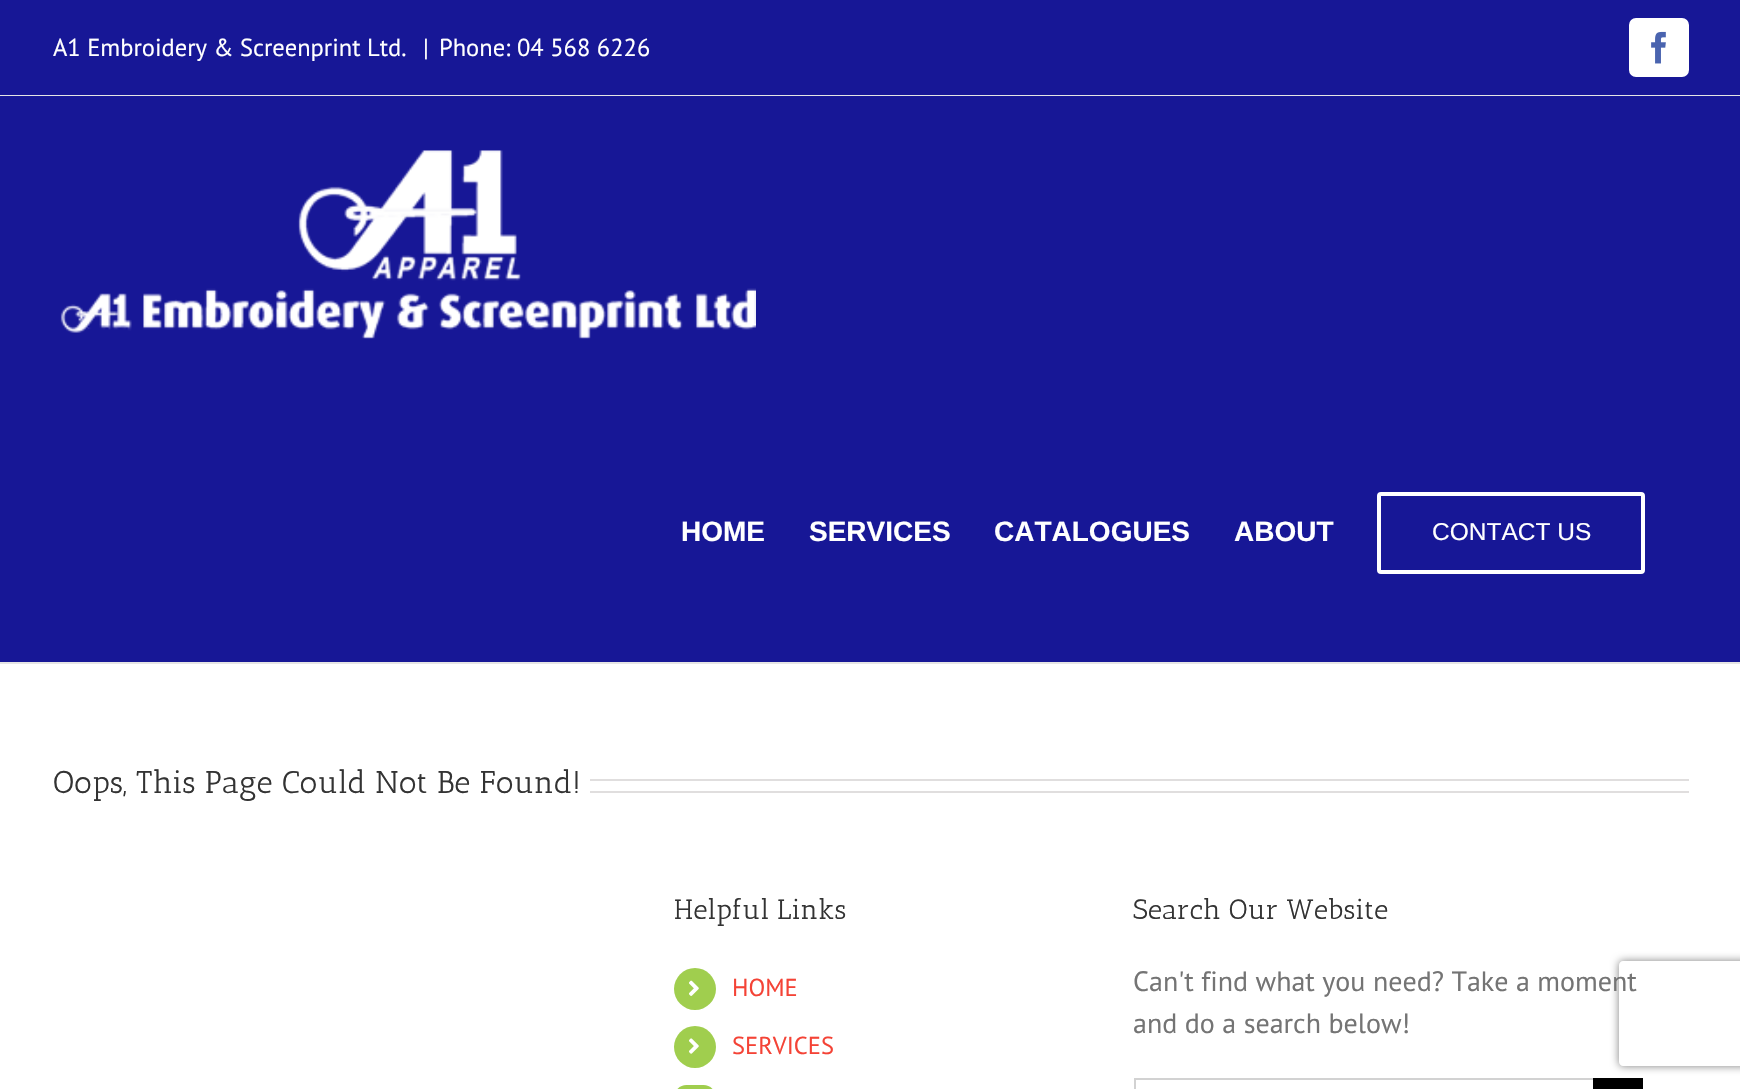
#include "include/core/SkBlurTypes.h"
#include "include/core/SkCanvas.h"
#include "include/core/SkData.h"
#include "include/core/SkFont.h"
#include "include/core/SkFontMgr.h"
#include "include/core/SkImage.h"
#include "include/core/SkMaskFilter.h"
#include "include/core/SkPaint.h"
#include "include/core/SkPathBuilder.h"
#include "include/core/SkTextBlob.h"
#include "include/effects/SkDashPathEffect.h"
#include "include/effects/SkGradientShader.h"
#include "include/utils/SkParsePath.h"

extern sk_sp<SkFontMgr> fontMgr;

void draw(SkCanvas* canvas) {
  SkPaint p;
  p.setAntiAlias(true);
  canvas->clear(SK_ColorWHITE);
  p.setColor(SkColorSetRGB(23, 23, 150));
  canvas->drawRect(SkRect::MakeLTRB(0, 0, 1740, 95), p);
  p.setColor(SkColorSetRGB(229, 229, 229));
  canvas->drawRect(SkRect::MakeLTRB(0, 95, 1740, 96), p);
  p.setColor(SK_ColorWHITE);
  canvas->drawRoundRect(SkRect::MakeLTRB(1630, 19, 1688, 76), 6, 6, p);
  p.setStyle(SkPaint::kStroke_Style);
  p.setStrokeWidth(2);
  canvas->drawRoundRect(SkRect::MakeLTRB(1630, 19, 1688, 76), 6, 6, p);
  canvas->drawImageRect(SkImages::DeferredFromEncodedData(SkData::MakeFromFileName("images/1.png")), SkRect::MakeLTRB(1651, 31, 1666, 64), SkSamplingOptions());
  p.setStyle(SkPaint::kFill_Style);
  p.setColor(SkColorSetRGB(23, 23, 150));
  canvas->drawRect(SkRect::MakeLTRB(0, 96, 1740, 662), p);
  p.setColor(SkColorSetRGB(229, 229, 229));
  canvas->drawRect(SkRect::MakeLTRB(0, 662, 1740, 664), p);
  canvas->drawImageRect(SkImages::DeferredFromEncodedData(SkData::MakeFromFileName("images/2.png")), SkRect::MakeLTRB(60, 150, 756, 339), SkSamplingOptions());
  p.setStyle(SkPaint::kStroke_Style);
  p.setStrokeWidth(4);
  p.setColor(SK_ColorWHITE);
  canvas->drawRoundRect(SkRect::MakeLTRB(1379, 494, 1643, 572), 2, 2, p);
  p.setStyle(SkPaint::kFill_Style);
  p.setColor(SkColorSetRGB(224, 222, 222));
  canvas->drawRect(SkRect::MakeLTRB(590, 779, 1689, 781), p);
  canvas->drawRect(SkRect::MakeLTRB(590, 791, 1689, 793), p);
  p.setColor(SkColorSetRGB(160, 206, 78));
  canvas->drawCircle(695, 989, 21, p);
  canvas->drawImageRect(SkImages::DeferredFromEncodedData(SkData::MakeFromFileName("images/3.png")), SkRect::MakeLTRB(689, 980, 699, 996), SkSamplingOptions());
  canvas->drawCircle(695, 1047, 21, p);
  canvas->drawImageRect(SkImages::DeferredFromEncodedData(SkData::MakeFromFileName("images/4.png")), SkRect::MakeLTRB(689, 1038, 699, 1054), SkSamplingOptions());
  canvas->drawRoundRect(SkRect::MakeLTRB(674, 1085, 716, 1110), 21, 21, p);
  p.setColor(SkColorSetRGB(210, 210, 210));
  canvas->drawRect(SkRect::MakeLTRB(1134, 1078, 1593, 1080), p);
  canvas->drawRect(SkRect::MakeLTRB(1134, 1078, 1136, 1089), p);
  p.setColor(SK_ColorBLACK);
  canvas->drawRect(SkRect::MakeLTRB(1593, 1078, 1643, 1089), p);
  canvas->save();
  canvas->clipPath(SkPathBuilder(SkPathFillType::kEvenOdd).moveTo(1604, 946).lineTo(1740, 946).lineTo(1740, 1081).lineTo(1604, 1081).close().moveTo(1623, 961).lineTo(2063, 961).cubicTo(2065, 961, 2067, 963, 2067, 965).lineTo(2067, 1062).cubicTo(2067, 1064, 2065, 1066, 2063, 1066).lineTo(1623, 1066).cubicTo(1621, 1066, 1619, 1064, 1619, 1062).lineTo(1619, 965).cubicTo(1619, 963, 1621, 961, 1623, 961).close().detach(), true);
  p.setColor(SkColorSetRGB(128, 128, 128));
  p.setMaskFilter(SkMaskFilter::MakeBlur(kNormal_SkBlurStyle, 4.5f));
  canvas->drawRoundRect(SkRect::MakeLTRB(1619, 961, 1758, 1066), 4, 4, p);
  p.setMaskFilter(nullptr);
  canvas->restore();
  SkFont font1(fontMgr->matchFamilyStyle("PT Sans", SkFontStyle::Normal()), 24.5f);
  font1.setSubpixel(true);
  p.setColor(SK_ColorWHITE);
  canvas->drawString("A1 Embroidery & Screenprint Ltd.", 53, 56, font1, p);
  canvas->drawString("|", 423, 56, font1, p);
  canvas->drawString("Phone: 04 568 6226", 439, 56, font1, p);
  SkFont font2(fontMgr->matchFamilyStyle("Liberation Sans", SkFontStyle::Bold()), 28);
  font2.setSubpixel(true);
  canvas->drawString("HOME", 681, 541, font2, p);
  canvas->drawString("SERVICES", 809, 541, font2, p);
  canvas->drawString("CATALOGUES", 994, 541, font2, p);
  canvas->drawString("ABOUT", 1234, 541, font2, p);
  SkFont font3(fontMgr->matchFamilyStyle("Liberation Sans", SkFontStyle::Normal()), 24.5f);
  font3.setSubpixel(true);
  canvas->drawString("CONTACT US", 1432, 540, font3, p);
  SkFont font4(fontMgr->matchFamilyStyle("Antic Slab", SkFontStyle::Normal()), 31.5f);
  font4.setSubpixel(true);
  p.setColor(SkColorSetRGB(51, 51, 51));
  canvas->drawString("Oops, This Page Could Not Be Found!", 53, 793, font4, p);
  SkFont font5(fontMgr->matchFamilyStyle("Antic Slab", SkFontStyle::Normal()), 28);
  font5.setSubpixel(true);
  canvas->drawString("Helpful Links", 674, 919, font5, p);
  p.setColor(SkColorSetRGB(244, 67, 54));
  canvas->drawString("HOME", 732, 996, font1, p);
  canvas->drawString("SERVICES", 732, 1054, font1, p);
  p.setColor(SkColorSetRGB(51, 51, 51));
  canvas->drawString("Search Our Website", 1133, 919, font5, p);
  SkFont font6(fontMgr->matchFamilyStyle("PT Sans", SkFontStyle::Normal()), 28);
  font6.setSubpixel(true);
  p.setColor(SkColorSetRGB(116, 116, 116));
  canvas->drawString("Can't find what you need? Take a moment", 1133, 991, font6, p);
  canvas->drawString("and do a search below!", 1133, 1033, font6, p);
}
